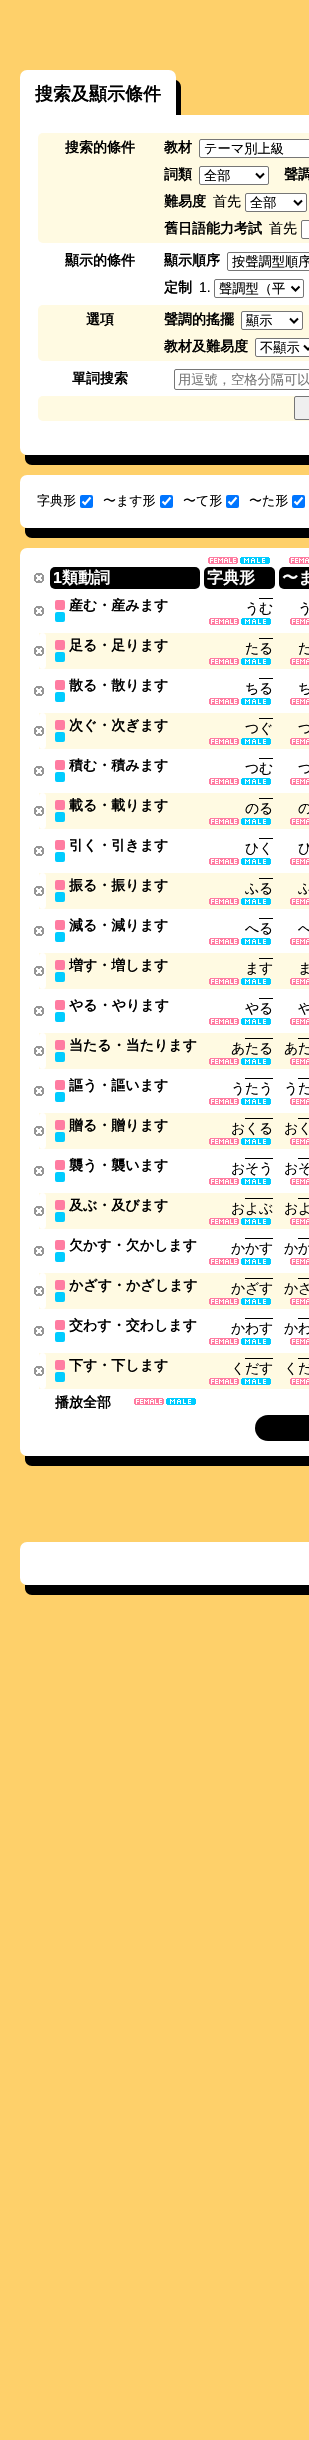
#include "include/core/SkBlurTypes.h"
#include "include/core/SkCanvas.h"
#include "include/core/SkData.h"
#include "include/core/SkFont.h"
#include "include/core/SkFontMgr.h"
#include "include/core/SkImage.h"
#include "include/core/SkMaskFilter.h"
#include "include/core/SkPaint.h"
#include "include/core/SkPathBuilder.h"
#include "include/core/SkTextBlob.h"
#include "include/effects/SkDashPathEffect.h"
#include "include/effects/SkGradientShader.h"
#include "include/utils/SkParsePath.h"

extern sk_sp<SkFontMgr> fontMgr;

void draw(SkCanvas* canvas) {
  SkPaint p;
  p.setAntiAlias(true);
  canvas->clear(SkColorSetRGB(254, 208, 106));
  p.setColor(SK_ColorBLACK);
  canvas->drawPath(SkPathBuilder().moveTo(25, 130).lineTo(25, 133).cubicTo(25, 137, 28, 140, 32, 140).lineTo(174, 140).cubicTo(178, 140, 181, 137, 181, 133).lineTo(181, 87).cubicTo(181, 84, 179, 81, 176, 80).lineTo(176, 124).cubicTo(174, 135, 146, 130, 145, 130).close().detach(), p);
  p.setColor(SK_ColorWHITE);
  canvas->drawRoundRect(SkRect::MakeLTRB(20, 70, 176, 130), 7, 7, p);
  p.setColor(SK_ColorBLACK);
  canvas->drawPath(SkPathBuilder().moveTo(25, 455).lineTo(25, 458).cubicTo(25, 462, 28, 465, 32, 465).lineTo(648, 465).cubicTo(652, 465, 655, 462, 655, 458).lineTo(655, 132).cubicTo(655, 129, 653, 126, 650, 125).lineTo(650, 448).cubicTo(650, 452, 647, 455, 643, 455).close().detach(), p);
  p.setColor(SK_ColorWHITE);
  canvas->drawRoundRect(SkRect::MakeLTRB(20, 115, 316, 455), 7, 7, p);
  p.setColor(SkColorSetRGB(255, 250, 226));
  canvas->drawRoundRect(SkRect::MakeLTRB(38, 133, 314, 243), 5, 5, p);
  p.setColor(SK_ColorWHITE);
  canvas->drawRoundRect(SkRect::MakeLTRB(199.5f, 139.5f, 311.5f, 157.5f), 1.5f, 1.5f, p);
  p.setStyle(SkPaint::kStroke_Style);
  p.setStrokeWidth(1);
  p.setColor(SkColorSetRGB(118, 118, 118));
  canvas->drawRoundRect(SkRect::MakeLTRB(199.5f, 139.5f, 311.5f, 157.5f), 1.5f, 1.5f, p);
  p.setStyle(SkPaint::kFill_Style);
  p.setColor(SK_ColorWHITE);
  canvas->drawRoundRect(SkRect::MakeLTRB(199.5f, 166.5f, 268.5f, 184.5f), 1.5f, 1.5f, p);
  p.setStyle(SkPaint::kStroke_Style);
  p.setColor(SkColorSetRGB(118, 118, 118));
  canvas->drawRoundRect(SkRect::MakeLTRB(199.5f, 166.5f, 268.5f, 184.5f), 1.5f, 1.5f, p);
  p.setStrokeWidth(2);
  p.setColor(SK_ColorBLACK);
  canvas->drawPath(SkPathBuilder().moveTo(256, 173.5f).lineTo(260, 177.5f).lineTo(264, 173.5f).detach(), p);
  p.setStyle(SkPaint::kFill_Style);
  p.setColor(SK_ColorWHITE);
  canvas->drawRoundRect(SkRect::MakeLTRB(245.5f, 193.5f, 306.5f, 211.5f), 1.5f, 1.5f, p);
  p.setStyle(SkPaint::kStroke_Style);
  p.setStrokeWidth(1);
  p.setColor(SkColorSetRGB(118, 118, 118));
  canvas->drawRoundRect(SkRect::MakeLTRB(245.5f, 193.5f, 306.5f, 211.5f), 1.5f, 1.5f, p);
  p.setStrokeWidth(2);
  p.setColor(SK_ColorBLACK);
  canvas->drawPath(SkPathBuilder().moveTo(294, 200.5f).lineTo(298, 204.5f).lineTo(302, 200.5f).detach(), p);
  p.setStyle(SkPaint::kFill_Style);
  p.setColor(SK_ColorWHITE);
  canvas->drawRoundRect(SkRect::MakeLTRB(301.5f, 220.5f, 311.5f, 238.5f), 1.5f, 1.5f, p);
  p.setStyle(SkPaint::kStroke_Style);
  p.setStrokeWidth(1);
  p.setColor(SkColorSetRGB(118, 118, 118));
  canvas->drawRoundRect(SkRect::MakeLTRB(301.5f, 220.5f, 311.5f, 238.5f), 1.5f, 1.5f, p);
  canvas->drawRoundRect(SkRect::MakeLTRB(227.5f, 252.5f, 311.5f, 270.5f), 1.5f, 1.5f, p);
  canvas->drawRoundRect(SkRect::MakeLTRB(214.5f, 279.5f, 303.5f, 297.5f), 1.5f, 1.5f, p);
  p.setStrokeWidth(2);
  p.setColor(SK_ColorBLACK);
  canvas->drawPath(SkPathBuilder().moveTo(291.5f, 286.5f).lineTo(295.5f, 290.5f).lineTo(299.5f, 286.5f).detach(), p);
  p.setStyle(SkPaint::kFill_Style);
  p.setColor(SkColorSetRGB(255, 250, 226));
  canvas->drawRoundRect(SkRect::MakeLTRB(38, 305, 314, 361), 5, 5, p);
  p.setColor(SK_ColorWHITE);
  canvas->drawRoundRect(SkRect::MakeLTRB(241.5f, 311.5f, 302.5f, 329.5f), 1.5f, 1.5f, p);
  p.setStyle(SkPaint::kStroke_Style);
  p.setStrokeWidth(1);
  p.setColor(SkColorSetRGB(118, 118, 118));
  canvas->drawRoundRect(SkRect::MakeLTRB(241.5f, 311.5f, 302.5f, 329.5f), 1.5f, 1.5f, p);
  p.setStrokeWidth(2);
  p.setColor(SK_ColorBLACK);
  canvas->drawPath(SkPathBuilder().moveTo(290, 318.5f).lineTo(294, 322.5f).lineTo(298, 318.5f).detach(), p);
  p.setStyle(SkPaint::kFill_Style);
  p.setColor(SK_ColorWHITE);
  canvas->drawRoundRect(SkRect::MakeLTRB(255.5f, 338.5f, 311.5f, 356.5f), 1.5f, 1.5f, p);
  p.setStyle(SkPaint::kStroke_Style);
  p.setStrokeWidth(1);
  p.setColor(SkColorSetRGB(118, 118, 118));
  canvas->drawRoundRect(SkRect::MakeLTRB(255.5f, 338.5f, 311.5f, 356.5f), 1.5f, 1.5f, p);
  p.setStrokeWidth(2);
  p.setColor(SK_ColorBLACK);
  canvas->drawPath(SkPathBuilder().moveTo(304, 345.5f).lineTo(308, 349.5f).lineTo(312, 345.5f).detach(), p);
  p.setStrokeWidth(1);
  p.setColor(SkColorSetRGB(118, 118, 118));
  canvas->drawRoundRect(SkRect::MakeLTRB(174.5f, 369.5f, 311.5f, 389.5f), 1.5f, 1.5f, p);
  p.setStyle(SkPaint::kFill_Style);
  p.setColor(SkColorSetRGB(255, 250, 226));
  canvas->drawRoundRect(SkRect::MakeLTRB(38, 396, 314, 421), 5, 5, p);
  p.setColor(SkColorSetRGB(239, 239, 239));
  canvas->drawRoundRect(SkRect::MakeLTRB(294.5f, 396.5f, 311.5f, 419.5f), 1.5f, 1.5f, p);
  p.setStyle(SkPaint::kStroke_Style);
  p.setColor(SkColorSetRGB(118, 118, 118));
  canvas->drawRoundRect(SkRect::MakeLTRB(294.5f, 396.5f, 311.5f, 419.5f), 1.5f, 1.5f, p);
  p.setStyle(SkPaint::kFill_Style);
  p.setColor(SK_ColorBLACK);
  canvas->drawPath(SkPathBuilder().moveTo(25, 528).lineTo(25, 531).cubicTo(25, 535, 28, 538, 32, 538).lineTo(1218, 538).cubicTo(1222, 538, 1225, 535, 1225, 531).lineTo(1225, 492).cubicTo(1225, 489, 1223, 486, 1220, 485).lineTo(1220, 509).cubicTo(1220, 515, 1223, 528, 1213, 528).close().detach(), p);
  p.setColor(SK_ColorWHITE);
  canvas->drawRoundRect(SkRect::MakeLTRB(20, 475, 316, 528), 7, 7, p);
  p.setColor(SkColorSetRGB(0, 117, 255));
  canvas->drawRoundRect(SkRect::MakeLTRB(80, 495, 93, 508), 2, 2, p);
  p.setStyle(SkPaint::kStroke_Style);
  p.setStrokeWidth(2.1f);
  p.setColor(SK_ColorWHITE);
  canvas->drawPath(SkPathBuilder().moveTo(82.5f, 501.5f).lineTo(85, 504).lineTo(90.5f, 497.5f).detach(), p);
  p.setStyle(SkPaint::kFill_Style);
  p.setColor(SkColorSetRGB(0, 117, 255));
  canvas->drawRoundRect(SkRect::MakeLTRB(160, 495, 173, 508), 2, 2, p);
  p.setStyle(SkPaint::kStroke_Style);
  p.setColor(SK_ColorWHITE);
  canvas->drawPath(SkPathBuilder().moveTo(162.5f, 501.5f).lineTo(165, 504).lineTo(170.5f, 497.5f).detach(), p);
  p.setStyle(SkPaint::kFill_Style);
  p.setColor(SkColorSetRGB(0, 117, 255));
  canvas->drawRoundRect(SkRect::MakeLTRB(226, 495, 239, 508), 2, 2, p);
  p.setStyle(SkPaint::kStroke_Style);
  p.setColor(SK_ColorWHITE);
  canvas->drawPath(SkPathBuilder().moveTo(228.5f, 501.5f).lineTo(231, 504).lineTo(236.5f, 497.5f).detach(), p);
  p.setStyle(SkPaint::kFill_Style);
  p.setColor(SkColorSetRGB(0, 117, 255));
  canvas->drawRoundRect(SkRect::MakeLTRB(292, 495, 305, 508), 2, 2, p);
  p.setStyle(SkPaint::kStroke_Style);
  p.setColor(SK_ColorWHITE);
  canvas->drawPath(SkPathBuilder().moveTo(294.5f, 501.5f).lineTo(297, 504).lineTo(302.5f, 497.5f).detach(), p);
  p.setStyle(SkPaint::kFill_Style);
  p.setColor(SK_ColorBLACK);
  canvas->drawPath(SkPathBuilder().moveTo(25, 1456).lineTo(25, 1459).cubicTo(25, 1463, 28, 1466, 32, 1466).lineTo(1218, 1466).cubicTo(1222, 1466, 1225, 1463, 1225, 1459).lineTo(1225, 565).cubicTo(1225, 562, 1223, 559, 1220, 558).lineTo(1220, 1449).cubicTo(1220, 1453, 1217, 1456, 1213, 1456).close().detach(), p);
  p.setColor(SK_ColorWHITE);
  canvas->drawRoundRect(SkRect::MakeLTRB(20, 548, 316, 1456), 7, 7, p);
  canvas->drawImageRect(SkImages::DeferredFromEncodedData(SkData::MakeFromFileName("images/1.png")), SkRect::MakeLTRB(34, 573, 44, 583), SkSamplingOptions());
  p.setColor(SK_ColorBLACK);
  canvas->drawRoundRect(SkRect::MakeLTRB(50, 567, 200, 589), 5, 5, p);
  canvas->drawRoundRect(SkRect::MakeLTRB(204, 567, 275, 589), 5, 5, p);
  canvas->drawImageRect(SkImages::DeferredFromEncodedData(SkData::MakeFromFileName("images/2.png")), SkRect::MakeLTRB(208, 557, 238, 564), SkSamplingOptions());
  canvas->drawImageRect(SkImages::DeferredFromEncodedData(SkData::MakeFromFileName("images/3.png")), SkRect::MakeLTRB(240, 557, 270, 564), SkSamplingOptions());
  canvas->drawRoundRect(SkRect::MakeLTRB(279, 567, 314, 589), 5, 5, p);
  canvas->drawImageRect(SkImages::DeferredFromEncodedData(SkData::MakeFromFileName("images/4.png")), SkRect::MakeLTRB(289, 557, 309, 564), SkSamplingOptions());
  canvas->drawImageRect(SkImages::DeferredFromEncodedData(SkData::MakeFromFileName("images/1.png")), SkRect::MakeLTRB(34, 606, 44, 616), SkSamplingOptions());
  p.setColor(SkColorSetRGB(255, 124, 161));
  canvas->drawRoundRect(SkRect::MakeLTRB(56, 601, 64, 609), 1, 1, p);
  p.setStyle(SkPaint::kStroke_Style);
  p.setStrokeWidth(2);
  canvas->drawRoundRect(SkRect::MakeLTRB(56, 601, 64, 609), 1, 1, p);
  p.setStyle(SkPaint::kFill_Style);
  p.setColor(SkColorSetRGB(0, 204, 255));
  canvas->drawRoundRect(SkRect::MakeLTRB(56, 613, 64, 621), 1, 1, p);
  p.setStyle(SkPaint::kStroke_Style);
  canvas->drawRoundRect(SkRect::MakeLTRB(56, 613, 64, 621), 1, 1, p);
  p.setStyle(SkPaint::kFill_Style);
  p.setColor(SK_ColorBLACK);
  canvas->drawRect(SkRect::MakeLTRB(259, 598, 273, 599), p);
  canvas->drawImageRect(SkImages::DeferredFromEncodedData(SkData::MakeFromFileName("images/2.png")), SkRect::MakeLTRB(209, 618, 239, 625), SkSamplingOptions());
  canvas->drawImageRect(SkImages::DeferredFromEncodedData(SkData::MakeFromFileName("images/3.png")), SkRect::MakeLTRB(241, 618, 271, 625), SkSamplingOptions());
  canvas->drawImageRect(SkImages::DeferredFromEncodedData(SkData::MakeFromFileName("images/5.png")), SkRect::MakeLTRB(290, 618, 309, 625), SkSamplingOptions());
  p.setColor(SkColorSetRGB(255, 250, 226));
  canvas->drawRect(SkRect::MakeLTRB(39, 633, 309, 669), p);
  p.setColor(SK_ColorWHITE);
  canvas->drawRoundRect(SkRect::MakeLTRB(39, 633, 46, 669), 3.5f, 3.5f, p);
  canvas->drawImageRect(SkImages::DeferredFromEncodedData(SkData::MakeFromFileName("images/1.png")), SkRect::MakeLTRB(34, 646, 44, 656), SkSamplingOptions());
  p.setColor(SkColorSetRGB(255, 124, 161));
  canvas->drawRoundRect(SkRect::MakeLTRB(56, 641, 64, 649), 1, 1, p);
  p.setStyle(SkPaint::kStroke_Style);
  canvas->drawRoundRect(SkRect::MakeLTRB(56, 641, 64, 649), 1, 1, p);
  p.setStyle(SkPaint::kFill_Style);
  p.setColor(SkColorSetRGB(0, 204, 255));
  canvas->drawRoundRect(SkRect::MakeLTRB(56, 653, 64, 661), 1, 1, p);
  p.setStyle(SkPaint::kStroke_Style);
  canvas->drawRoundRect(SkRect::MakeLTRB(56, 653, 64, 661), 1, 1, p);
  p.setStyle(SkPaint::kFill_Style);
  p.setColor(SK_ColorBLACK);
  canvas->drawRect(SkRect::MakeLTRB(259, 638, 273, 639), p);
  canvas->drawImageRect(SkImages::DeferredFromEncodedData(SkData::MakeFromFileName("images/6.png")), SkRect::MakeLTRB(209, 658, 239, 665), SkSamplingOptions());
  canvas->drawImageRect(SkImages::DeferredFromEncodedData(SkData::MakeFromFileName("images/7.png")), SkRect::MakeLTRB(241, 658, 271, 665), SkSamplingOptions());
  canvas->drawImageRect(SkImages::DeferredFromEncodedData(SkData::MakeFromFileName("images/8.png")), SkRect::MakeLTRB(290, 658, 309, 665), SkSamplingOptions());
  canvas->drawImageRect(SkImages::DeferredFromEncodedData(SkData::MakeFromFileName("images/1.png")), SkRect::MakeLTRB(34, 686, 44, 696), SkSamplingOptions());
  p.setColor(SkColorSetRGB(255, 124, 161));
  canvas->drawRoundRect(SkRect::MakeLTRB(56, 681, 64, 689), 1, 1, p);
  p.setStyle(SkPaint::kStroke_Style);
  canvas->drawRoundRect(SkRect::MakeLTRB(56, 681, 64, 689), 1, 1, p);
  p.setStyle(SkPaint::kFill_Style);
  p.setColor(SkColorSetRGB(0, 204, 255));
  canvas->drawRoundRect(SkRect::MakeLTRB(56, 693, 64, 701), 1, 1, p);
  p.setStyle(SkPaint::kStroke_Style);
  canvas->drawRoundRect(SkRect::MakeLTRB(56, 693, 64, 701), 1, 1, p);
  p.setStyle(SkPaint::kFill_Style);
  p.setColor(SK_ColorBLACK);
  canvas->drawRect(SkRect::MakeLTRB(259, 678, 273, 679), p);
  canvas->drawImageRect(SkImages::DeferredFromEncodedData(SkData::MakeFromFileName("images/2.png")), SkRect::MakeLTRB(209, 698, 239, 705), SkSamplingOptions());
  canvas->drawImageRect(SkImages::DeferredFromEncodedData(SkData::MakeFromFileName("images/3.png")), SkRect::MakeLTRB(241, 698, 271, 705), SkSamplingOptions());
  canvas->drawImageRect(SkImages::DeferredFromEncodedData(SkData::MakeFromFileName("images/5.png")), SkRect::MakeLTRB(290, 698, 309, 705), SkSamplingOptions());
  p.setColor(SkColorSetRGB(255, 250, 226));
  canvas->drawRect(SkRect::MakeLTRB(39, 713, 309, 749), p);
  p.setColor(SK_ColorWHITE);
  canvas->drawRoundRect(SkRect::MakeLTRB(39, 713, 46, 749), 3.5f, 3.5f, p);
  canvas->drawImageRect(SkImages::DeferredFromEncodedData(SkData::MakeFromFileName("images/1.png")), SkRect::MakeLTRB(34, 726, 44, 736), SkSamplingOptions());
  p.setColor(SkColorSetRGB(255, 124, 161));
  canvas->drawRoundRect(SkRect::MakeLTRB(56, 721, 64, 729), 1, 1, p);
  p.setStyle(SkPaint::kStroke_Style);
  canvas->drawRoundRect(SkRect::MakeLTRB(56, 721, 64, 729), 1, 1, p);
  p.setStyle(SkPaint::kFill_Style);
  p.setColor(SkColorSetRGB(0, 204, 255));
  canvas->drawRoundRect(SkRect::MakeLTRB(56, 733, 64, 741), 1, 1, p);
  p.setStyle(SkPaint::kStroke_Style);
  canvas->drawRoundRect(SkRect::MakeLTRB(56, 733, 64, 741), 1, 1, p);
  p.setStyle(SkPaint::kFill_Style);
  p.setColor(SK_ColorBLACK);
  canvas->drawRect(SkRect::MakeLTRB(259, 718, 273, 719), p);
  canvas->drawImageRect(SkImages::DeferredFromEncodedData(SkData::MakeFromFileName("images/6.png")), SkRect::MakeLTRB(209, 738, 239, 745), SkSamplingOptions());
  canvas->drawImageRect(SkImages::DeferredFromEncodedData(SkData::MakeFromFileName("images/7.png")), SkRect::MakeLTRB(241, 738, 271, 745), SkSamplingOptions());
  canvas->drawImageRect(SkImages::DeferredFromEncodedData(SkData::MakeFromFileName("images/8.png")), SkRect::MakeLTRB(290, 738, 309, 745), SkSamplingOptions());
  canvas->drawImageRect(SkImages::DeferredFromEncodedData(SkData::MakeFromFileName("images/1.png")), SkRect::MakeLTRB(34, 766, 44, 776), SkSamplingOptions());
  p.setColor(SkColorSetRGB(255, 124, 161));
  canvas->drawRoundRect(SkRect::MakeLTRB(56, 761, 64, 769), 1, 1, p);
  p.setStyle(SkPaint::kStroke_Style);
  canvas->drawRoundRect(SkRect::MakeLTRB(56, 761, 64, 769), 1, 1, p);
  p.setStyle(SkPaint::kFill_Style);
  p.setColor(SkColorSetRGB(0, 204, 255));
  canvas->drawRoundRect(SkRect::MakeLTRB(56, 773, 64, 781), 1, 1, p);
  p.setStyle(SkPaint::kStroke_Style);
  canvas->drawRoundRect(SkRect::MakeLTRB(56, 773, 64, 781), 1, 1, p);
  p.setStyle(SkPaint::kFill_Style);
  p.setColor(SK_ColorBLACK);
  canvas->drawRect(SkRect::MakeLTRB(259, 758, 273, 759), p);
  canvas->drawImageRect(SkImages::DeferredFromEncodedData(SkData::MakeFromFileName("images/2.png")), SkRect::MakeLTRB(209, 778, 239, 785), SkSamplingOptions());
  canvas->drawImageRect(SkImages::DeferredFromEncodedData(SkData::MakeFromFileName("images/3.png")), SkRect::MakeLTRB(241, 778, 271, 785), SkSamplingOptions());
  canvas->drawImageRect(SkImages::DeferredFromEncodedData(SkData::MakeFromFileName("images/5.png")), SkRect::MakeLTRB(290, 778, 309, 785), SkSamplingOptions());
  p.setColor(SkColorSetRGB(255, 250, 226));
  canvas->drawRect(SkRect::MakeLTRB(39, 793, 309, 829), p);
  p.setColor(SK_ColorWHITE);
  canvas->drawRoundRect(SkRect::MakeLTRB(39, 793, 46, 829), 3.5f, 3.5f, p);
  canvas->drawImageRect(SkImages::DeferredFromEncodedData(SkData::MakeFromFileName("images/1.png")), SkRect::MakeLTRB(34, 806, 44, 816), SkSamplingOptions());
  p.setColor(SkColorSetRGB(255, 124, 161));
  canvas->drawRoundRect(SkRect::MakeLTRB(56, 801, 64, 809), 1, 1, p);
  p.setStyle(SkPaint::kStroke_Style);
  canvas->drawRoundRect(SkRect::MakeLTRB(56, 801, 64, 809), 1, 1, p);
  p.setStyle(SkPaint::kFill_Style);
  p.setColor(SkColorSetRGB(0, 204, 255));
  canvas->drawRoundRect(SkRect::MakeLTRB(56, 813, 64, 821), 1, 1, p);
  p.setStyle(SkPaint::kStroke_Style);
  canvas->drawRoundRect(SkRect::MakeLTRB(56, 813, 64, 821), 1, 1, p);
  p.setStyle(SkPaint::kFill_Style);
  p.setColor(SK_ColorBLACK);
  canvas->drawRect(SkRect::MakeLTRB(259, 798, 273, 799), p);
  canvas->drawImageRect(SkImages::DeferredFromEncodedData(SkData::MakeFromFileName("images/6.png")), SkRect::MakeLTRB(209, 818, 239, 825), SkSamplingOptions());
  canvas->drawImageRect(SkImages::DeferredFromEncodedData(SkData::MakeFromFileName("images/7.png")), SkRect::MakeLTRB(241, 818, 271, 825), SkSamplingOptions());
  canvas->drawImageRect(SkImages::DeferredFromEncodedData(SkData::MakeFromFileName("images/8.png")), SkRect::MakeLTRB(290, 818, 309, 825), SkSamplingOptions());
  canvas->drawImageRect(SkImages::DeferredFromEncodedData(SkData::MakeFromFileName("images/1.png")), SkRect::MakeLTRB(34, 846, 44, 856), SkSamplingOptions());
  p.setColor(SkColorSetRGB(255, 124, 161));
  canvas->drawRoundRect(SkRect::MakeLTRB(56, 841, 64, 849), 1, 1, p);
  p.setStyle(SkPaint::kStroke_Style);
  canvas->drawRoundRect(SkRect::MakeLTRB(56, 841, 64, 849), 1, 1, p);
  p.setStyle(SkPaint::kFill_Style);
  p.setColor(SkColorSetRGB(0, 204, 255));
  canvas->drawRoundRect(SkRect::MakeLTRB(56, 853, 64, 861), 1, 1, p);
  p.setStyle(SkPaint::kStroke_Style);
  canvas->drawRoundRect(SkRect::MakeLTRB(56, 853, 64, 861), 1, 1, p);
  p.setStyle(SkPaint::kFill_Style);
  p.setColor(SK_ColorBLACK);
  canvas->drawRect(SkRect::MakeLTRB(259, 838, 273, 839), p);
  canvas->drawImageRect(SkImages::DeferredFromEncodedData(SkData::MakeFromFileName("images/2.png")), SkRect::MakeLTRB(209, 858, 239, 865), SkSamplingOptions());
  canvas->drawImageRect(SkImages::DeferredFromEncodedData(SkData::MakeFromFileName("images/3.png")), SkRect::MakeLTRB(241, 858, 271, 865), SkSamplingOptions());
  canvas->drawImageRect(SkImages::DeferredFromEncodedData(SkData::MakeFromFileName("images/5.png")), SkRect::MakeLTRB(290, 858, 309, 865), SkSamplingOptions());
  p.setColor(SkColorSetRGB(255, 250, 226));
  canvas->drawRect(SkRect::MakeLTRB(39, 873, 309, 909), p);
  p.setColor(SK_ColorWHITE);
  canvas->drawRoundRect(SkRect::MakeLTRB(39, 873, 46, 909), 3.5f, 3.5f, p);
  canvas->drawImageRect(SkImages::DeferredFromEncodedData(SkData::MakeFromFileName("images/1.png")), SkRect::MakeLTRB(34, 886, 44, 896), SkSamplingOptions());
  p.setColor(SkColorSetRGB(255, 124, 161));
  canvas->drawRoundRect(SkRect::MakeLTRB(56, 881, 64, 889), 1, 1, p);
  p.setStyle(SkPaint::kStroke_Style);
  canvas->drawRoundRect(SkRect::MakeLTRB(56, 881, 64, 889), 1, 1, p);
  p.setStyle(SkPaint::kFill_Style);
  p.setColor(SkColorSetRGB(0, 204, 255));
  canvas->drawRoundRect(SkRect::MakeLTRB(56, 893, 64, 901), 1, 1, p);
  p.setStyle(SkPaint::kStroke_Style);
  canvas->drawRoundRect(SkRect::MakeLTRB(56, 893, 64, 901), 1, 1, p);
  p.setStyle(SkPaint::kFill_Style);
  p.setColor(SK_ColorBLACK);
  canvas->drawRect(SkRect::MakeLTRB(259, 878, 273, 879), p);
  canvas->drawImageRect(SkImages::DeferredFromEncodedData(SkData::MakeFromFileName("images/6.png")), SkRect::MakeLTRB(209, 898, 239, 905), SkSamplingOptions());
  canvas->drawImageRect(SkImages::DeferredFromEncodedData(SkData::MakeFromFileName("images/7.png")), SkRect::MakeLTRB(241, 898, 271, 905), SkSamplingOptions());
  canvas->drawImageRect(SkImages::DeferredFromEncodedData(SkData::MakeFromFileName("images/8.png")), SkRect::MakeLTRB(290, 898, 309, 905), SkSamplingOptions());
  canvas->drawImageRect(SkImages::DeferredFromEncodedData(SkData::MakeFromFileName("images/1.png")), SkRect::MakeLTRB(34, 926, 44, 936), SkSamplingOptions());
  p.setColor(SkColorSetRGB(255, 124, 161));
  canvas->drawRoundRect(SkRect::MakeLTRB(56, 921, 64, 929), 1, 1, p);
  p.setStyle(SkPaint::kStroke_Style);
  canvas->drawRoundRect(SkRect::MakeLTRB(56, 921, 64, 929), 1, 1, p);
  p.setStyle(SkPaint::kFill_Style);
  p.setColor(SkColorSetRGB(0, 204, 255));
  canvas->drawRoundRect(SkRect::MakeLTRB(56, 933, 64, 941), 1, 1, p);
  p.setStyle(SkPaint::kStroke_Style);
  canvas->drawRoundRect(SkRect::MakeLTRB(56, 933, 64, 941), 1, 1, p);
  p.setStyle(SkPaint::kFill_Style);
  p.setColor(SK_ColorBLACK);
  canvas->drawRect(SkRect::MakeLTRB(259, 918, 273, 919), p);
  canvas->drawImageRect(SkImages::DeferredFromEncodedData(SkData::MakeFromFileName("images/2.png")), SkRect::MakeLTRB(209, 938, 239, 945), SkSamplingOptions());
  canvas->drawImageRect(SkImages::DeferredFromEncodedData(SkData::MakeFromFileName("images/3.png")), SkRect::MakeLTRB(241, 938, 271, 945), SkSamplingOptions());
  canvas->drawImageRect(SkImages::DeferredFromEncodedData(SkData::MakeFromFileName("images/5.png")), SkRect::MakeLTRB(290, 938, 309, 945), SkSamplingOptions());
  p.setColor(SkColorSetRGB(255, 250, 226));
  canvas->drawRect(SkRect::MakeLTRB(39, 953, 309, 989), p);
  p.setColor(SK_ColorWHITE);
  canvas->drawRoundRect(SkRect::MakeLTRB(39, 953, 46, 989), 3.5f, 3.5f, p);
  canvas->drawImageRect(SkImages::DeferredFromEncodedData(SkData::MakeFromFileName("images/1.png")), SkRect::MakeLTRB(34, 966, 44, 976), SkSamplingOptions());
  p.setColor(SkColorSetRGB(255, 124, 161));
  canvas->drawRoundRect(SkRect::MakeLTRB(56, 961, 64, 969), 1, 1, p);
  p.setStyle(SkPaint::kStroke_Style);
  canvas->drawRoundRect(SkRect::MakeLTRB(56, 961, 64, 969), 1, 1, p);
  p.setStyle(SkPaint::kFill_Style);
  p.setColor(SkColorSetRGB(0, 204, 255));
  canvas->drawRoundRect(SkRect::MakeLTRB(56, 973, 64, 981), 1, 1, p);
  p.setStyle(SkPaint::kStroke_Style);
  canvas->drawRoundRect(SkRect::MakeLTRB(56, 973, 64, 981), 1, 1, p);
  p.setStyle(SkPaint::kFill_Style);
  p.setColor(SK_ColorBLACK);
  canvas->drawRect(SkRect::MakeLTRB(259, 958, 273, 959), p);
  canvas->drawImageRect(SkImages::DeferredFromEncodedData(SkData::MakeFromFileName("images/6.png")), SkRect::MakeLTRB(209, 978, 239, 985), SkSamplingOptions());
  canvas->drawImageRect(SkImages::DeferredFromEncodedData(SkData::MakeFromFileName("images/7.png")), SkRect::MakeLTRB(241, 978, 271, 985), SkSamplingOptions());
  canvas->drawImageRect(SkImages::DeferredFromEncodedData(SkData::MakeFromFileName("images/8.png")), SkRect::MakeLTRB(290, 978, 309, 985), SkSamplingOptions());
  canvas->drawImageRect(SkImages::DeferredFromEncodedData(SkData::MakeFromFileName("images/1.png")), SkRect::MakeLTRB(34, 1006, 44, 1016), SkSamplingOptions());
  p.setColor(SkColorSetRGB(255, 124, 161));
  canvas->drawRoundRect(SkRect::MakeLTRB(56, 1001, 64, 1009), 1, 1, p);
  p.setStyle(SkPaint::kStroke_Style);
  canvas->drawRoundRect(SkRect::MakeLTRB(56, 1001, 64, 1009), 1, 1, p);
  p.setStyle(SkPaint::kFill_Style);
  p.setColor(SkColorSetRGB(0, 204, 255));
  canvas->drawRoundRect(SkRect::MakeLTRB(56, 1013, 64, 1021), 1, 1, p);
  p.setStyle(SkPaint::kStroke_Style);
  canvas->drawRoundRect(SkRect::MakeLTRB(56, 1013, 64, 1021), 1, 1, p);
  p.setStyle(SkPaint::kFill_Style);
  p.setColor(SK_ColorBLACK);
  canvas->drawRect(SkRect::MakeLTRB(259, 998, 273, 999), p);
  canvas->drawImageRect(SkImages::DeferredFromEncodedData(SkData::MakeFromFileName("images/2.png")), SkRect::MakeLTRB(209, 1018, 239, 1025), SkSamplingOptions());
  canvas->drawImageRect(SkImages::DeferredFromEncodedData(SkData::MakeFromFileName("images/3.png")), SkRect::MakeLTRB(241, 1018, 271, 1025), SkSamplingOptions());
  canvas->drawImageRect(SkImages::DeferredFromEncodedData(SkData::MakeFromFileName("images/5.png")), SkRect::MakeLTRB(290, 1018, 309, 1025), SkSamplingOptions());
  p.setColor(SkColorSetRGB(255, 250, 226));
  canvas->drawRect(SkRect::MakeLTRB(39, 1033, 309, 1069), p);
  p.setColor(SK_ColorWHITE);
  canvas->drawRoundRect(SkRect::MakeLTRB(39, 1033, 46, 1069), 3.5f, 3.5f, p);
  canvas->drawImageRect(SkImages::DeferredFromEncodedData(SkData::MakeFromFileName("images/1.png")), SkRect::MakeLTRB(34, 1046, 44, 1056), SkSamplingOptions());
  p.setColor(SkColorSetRGB(255, 124, 161));
  canvas->drawRoundRect(SkRect::MakeLTRB(56, 1041, 64, 1049), 1, 1, p);
  p.setStyle(SkPaint::kStroke_Style);
  canvas->drawRoundRect(SkRect::MakeLTRB(56, 1041, 64, 1049), 1, 1, p);
  p.setStyle(SkPaint::kFill_Style);
  p.setColor(SkColorSetRGB(0, 204, 255));
  canvas->drawRoundRect(SkRect::MakeLTRB(56, 1053, 64, 1061), 1, 1, p);
  p.setStyle(SkPaint::kStroke_Style);
  canvas->drawRoundRect(SkRect::MakeLTRB(56, 1053, 64, 1061), 1, 1, p);
  p.setStyle(SkPaint::kFill_Style);
  p.setColor(SK_ColorBLACK);
  canvas->drawRect(SkRect::MakeLTRB(245, 1038, 273, 1039), p);
  canvas->drawImageRect(SkImages::DeferredFromEncodedData(SkData::MakeFromFileName("images/6.png")), SkRect::MakeLTRB(209, 1058, 239, 1065), SkSamplingOptions());
  canvas->drawImageRect(SkImages::DeferredFromEncodedData(SkData::MakeFromFileName("images/7.png")), SkRect::MakeLTRB(241, 1058, 271, 1065), SkSamplingOptions());
  canvas->drawRect(SkRect::MakeLTRB(298, 1038, 309, 1039), p);
  canvas->drawImageRect(SkImages::DeferredFromEncodedData(SkData::MakeFromFileName("images/8.png")), SkRect::MakeLTRB(290, 1058, 309, 1065), SkSamplingOptions());
  canvas->drawImageRect(SkImages::DeferredFromEncodedData(SkData::MakeFromFileName("images/1.png")), SkRect::MakeLTRB(34, 1086, 44, 1096), SkSamplingOptions());
  p.setColor(SkColorSetRGB(255, 124, 161));
  canvas->drawRoundRect(SkRect::MakeLTRB(56, 1081, 64, 1089), 1, 1, p);
  p.setStyle(SkPaint::kStroke_Style);
  canvas->drawRoundRect(SkRect::MakeLTRB(56, 1081, 64, 1089), 1, 1, p);
  p.setStyle(SkPaint::kFill_Style);
  p.setColor(SkColorSetRGB(0, 204, 255));
  canvas->drawRoundRect(SkRect::MakeLTRB(56, 1093, 64, 1101), 1, 1, p);
  p.setStyle(SkPaint::kStroke_Style);
  canvas->drawRoundRect(SkRect::MakeLTRB(56, 1093, 64, 1101), 1, 1, p);
  p.setStyle(SkPaint::kFill_Style);
  p.setColor(SK_ColorBLACK);
  canvas->drawRect(SkRect::MakeLTRB(245, 1078, 273, 1079), p);
  canvas->drawImageRect(SkImages::DeferredFromEncodedData(SkData::MakeFromFileName("images/2.png")), SkRect::MakeLTRB(209, 1098, 239, 1105), SkSamplingOptions());
  canvas->drawImageRect(SkImages::DeferredFromEncodedData(SkData::MakeFromFileName("images/3.png")), SkRect::MakeLTRB(241, 1098, 271, 1105), SkSamplingOptions());
  canvas->drawRect(SkRect::MakeLTRB(298, 1078, 309, 1079), p);
  canvas->drawImageRect(SkImages::DeferredFromEncodedData(SkData::MakeFromFileName("images/5.png")), SkRect::MakeLTRB(290, 1098, 309, 1105), SkSamplingOptions());
  p.setColor(SkColorSetRGB(255, 250, 226));
  canvas->drawRect(SkRect::MakeLTRB(39, 1113, 309, 1149), p);
  p.setColor(SK_ColorWHITE);
  canvas->drawRoundRect(SkRect::MakeLTRB(39, 1113, 46, 1149), 3.5f, 3.5f, p);
  canvas->drawImageRect(SkImages::DeferredFromEncodedData(SkData::MakeFromFileName("images/1.png")), SkRect::MakeLTRB(34, 1126, 44, 1136), SkSamplingOptions());
  p.setColor(SkColorSetRGB(255, 124, 161));
  canvas->drawRoundRect(SkRect::MakeLTRB(56, 1121, 64, 1129), 1, 1, p);
  p.setStyle(SkPaint::kStroke_Style);
  canvas->drawRoundRect(SkRect::MakeLTRB(56, 1121, 64, 1129), 1, 1, p);
  p.setStyle(SkPaint::kFill_Style);
  p.setColor(SkColorSetRGB(0, 204, 255));
  canvas->drawRoundRect(SkRect::MakeLTRB(56, 1133, 64, 1141), 1, 1, p);
  p.setStyle(SkPaint::kStroke_Style);
  canvas->drawRoundRect(SkRect::MakeLTRB(56, 1133, 64, 1141), 1, 1, p);
  p.setStyle(SkPaint::kFill_Style);
  p.setColor(SK_ColorBLACK);
  canvas->drawRect(SkRect::MakeLTRB(245, 1118, 273, 1119), p);
  canvas->drawImageRect(SkImages::DeferredFromEncodedData(SkData::MakeFromFileName("images/6.png")), SkRect::MakeLTRB(209, 1138, 239, 1145), SkSamplingOptions());
  canvas->drawImageRect(SkImages::DeferredFromEncodedData(SkData::MakeFromFileName("images/7.png")), SkRect::MakeLTRB(241, 1138, 271, 1145), SkSamplingOptions());
  canvas->drawRect(SkRect::MakeLTRB(298, 1118, 309, 1119), p);
  canvas->drawImageRect(SkImages::DeferredFromEncodedData(SkData::MakeFromFileName("images/8.png")), SkRect::MakeLTRB(290, 1138, 309, 1145), SkSamplingOptions());
  canvas->drawImageRect(SkImages::DeferredFromEncodedData(SkData::MakeFromFileName("images/1.png")), SkRect::MakeLTRB(34, 1166, 44, 1176), SkSamplingOptions());
  p.setColor(SkColorSetRGB(255, 124, 161));
  canvas->drawRoundRect(SkRect::MakeLTRB(56, 1161, 64, 1169), 1, 1, p);
  p.setStyle(SkPaint::kStroke_Style);
  canvas->drawRoundRect(SkRect::MakeLTRB(56, 1161, 64, 1169), 1, 1, p);
  p.setStyle(SkPaint::kFill_Style);
  p.setColor(SkColorSetRGB(0, 204, 255));
  canvas->drawRoundRect(SkRect::MakeLTRB(56, 1173, 64, 1181), 1, 1, p);
  p.setStyle(SkPaint::kStroke_Style);
  canvas->drawRoundRect(SkRect::MakeLTRB(56, 1173, 64, 1181), 1, 1, p);
  p.setStyle(SkPaint::kFill_Style);
  p.setColor(SK_ColorBLACK);
  canvas->drawRect(SkRect::MakeLTRB(245, 1158, 273, 1159), p);
  canvas->drawImageRect(SkImages::DeferredFromEncodedData(SkData::MakeFromFileName("images/2.png")), SkRect::MakeLTRB(209, 1178, 239, 1185), SkSamplingOptions());
  canvas->drawImageRect(SkImages::DeferredFromEncodedData(SkData::MakeFromFileName("images/3.png")), SkRect::MakeLTRB(241, 1178, 271, 1185), SkSamplingOptions());
  canvas->drawRect(SkRect::MakeLTRB(298, 1158, 309, 1159), p);
  canvas->drawImageRect(SkImages::DeferredFromEncodedData(SkData::MakeFromFileName("images/5.png")), SkRect::MakeLTRB(290, 1178, 309, 1185), SkSamplingOptions());
  p.setColor(SkColorSetRGB(255, 250, 226));
  canvas->drawRect(SkRect::MakeLTRB(39, 1193, 309, 1229), p);
  p.setColor(SK_ColorWHITE);
  canvas->drawRoundRect(SkRect::MakeLTRB(39, 1193, 46, 1229), 3.5f, 3.5f, p);
  canvas->drawImageRect(SkImages::DeferredFromEncodedData(SkData::MakeFromFileName("images/1.png")), SkRect::MakeLTRB(34, 1206, 44, 1216), SkSamplingOptions());
  p.setColor(SkColorSetRGB(255, 124, 161));
  canvas->drawRoundRect(SkRect::MakeLTRB(56, 1201, 64, 1209), 1, 1, p);
  p.setStyle(SkPaint::kStroke_Style);
  canvas->drawRoundRect(SkRect::MakeLTRB(56, 1201, 64, 1209), 1, 1, p);
  p.setStyle(SkPaint::kFill_Style);
  p.setColor(SkColorSetRGB(0, 204, 255));
  canvas->drawRoundRect(SkRect::MakeLTRB(56, 1213, 64, 1221), 1, 1, p);
  p.setStyle(SkPaint::kStroke_Style);
  canvas->drawRoundRect(SkRect::MakeLTRB(56, 1213, 64, 1221), 1, 1, p);
  p.setStyle(SkPaint::kFill_Style);
  p.setColor(SK_ColorBLACK);
  canvas->drawRect(SkRect::MakeLTRB(245, 1198, 273, 1199), p);
  canvas->drawImageRect(SkImages::DeferredFromEncodedData(SkData::MakeFromFileName("images/6.png")), SkRect::MakeLTRB(209, 1218, 239, 1225), SkSamplingOptions());
  canvas->drawImageRect(SkImages::DeferredFromEncodedData(SkData::MakeFromFileName("images/7.png")), SkRect::MakeLTRB(241, 1218, 271, 1225), SkSamplingOptions());
  canvas->drawRect(SkRect::MakeLTRB(298, 1198, 309, 1199), p);
  canvas->drawImageRect(SkImages::DeferredFromEncodedData(SkData::MakeFromFileName("images/8.png")), SkRect::MakeLTRB(290, 1218, 309, 1225), SkSamplingOptions());
  canvas->drawImageRect(SkImages::DeferredFromEncodedData(SkData::MakeFromFileName("images/1.png")), SkRect::MakeLTRB(34, 1246, 44, 1256), SkSamplingOptions());
  p.setColor(SkColorSetRGB(255, 124, 161));
  canvas->drawRoundRect(SkRect::MakeLTRB(56, 1241, 64, 1249), 1, 1, p);
  p.setStyle(SkPaint::kStroke_Style);
  canvas->drawRoundRect(SkRect::MakeLTRB(56, 1241, 64, 1249), 1, 1, p);
  p.setStyle(SkPaint::kFill_Style);
  p.setColor(SkColorSetRGB(0, 204, 255));
  canvas->drawRoundRect(SkRect::MakeLTRB(56, 1253, 64, 1261), 1, 1, p);
  p.setStyle(SkPaint::kStroke_Style);
  canvas->drawRoundRect(SkRect::MakeLTRB(56, 1253, 64, 1261), 1, 1, p);
  p.setStyle(SkPaint::kFill_Style);
  p.setColor(SK_ColorBLACK);
  canvas->drawRect(SkRect::MakeLTRB(245, 1238, 273, 1239), p);
  canvas->drawImageRect(SkImages::DeferredFromEncodedData(SkData::MakeFromFileName("images/2.png")), SkRect::MakeLTRB(209, 1258, 239, 1265), SkSamplingOptions());
  canvas->drawImageRect(SkImages::DeferredFromEncodedData(SkData::MakeFromFileName("images/3.png")), SkRect::MakeLTRB(241, 1258, 271, 1265), SkSamplingOptions());
  canvas->drawRect(SkRect::MakeLTRB(298, 1238, 309, 1239), p);
  canvas->drawImageRect(SkImages::DeferredFromEncodedData(SkData::MakeFromFileName("images/5.png")), SkRect::MakeLTRB(290, 1258, 309, 1265), SkSamplingOptions());
  p.setColor(SkColorSetRGB(255, 250, 226));
  canvas->drawRect(SkRect::MakeLTRB(39, 1273, 309, 1309), p);
  p.setColor(SK_ColorWHITE);
  canvas->drawRoundRect(SkRect::MakeLTRB(39, 1273, 46, 1309), 3.5f, 3.5f, p);
  canvas->drawImageRect(SkImages::DeferredFromEncodedData(SkData::MakeFromFileName("images/1.png")), SkRect::MakeLTRB(34, 1286, 44, 1296), SkSamplingOptions());
  p.setColor(SkColorSetRGB(255, 124, 161));
  canvas->drawRoundRect(SkRect::MakeLTRB(56, 1281, 64, 1289), 1, 1, p);
  p.setStyle(SkPaint::kStroke_Style);
  canvas->drawRoundRect(SkRect::MakeLTRB(56, 1281, 64, 1289), 1, 1, p);
  p.setStyle(SkPaint::kFill_Style);
  p.setColor(SkColorSetRGB(0, 204, 255));
  canvas->drawRoundRect(SkRect::MakeLTRB(56, 1293, 64, 1301), 1, 1, p);
  p.setStyle(SkPaint::kStroke_Style);
  canvas->drawRoundRect(SkRect::MakeLTRB(56, 1293, 64, 1301), 1, 1, p);
  p.setStyle(SkPaint::kFill_Style);
  p.setColor(SK_ColorBLACK);
  canvas->drawRect(SkRect::MakeLTRB(245, 1278, 273, 1279), p);
  canvas->drawImageRect(SkImages::DeferredFromEncodedData(SkData::MakeFromFileName("images/6.png")), SkRect::MakeLTRB(209, 1298, 239, 1305), SkSamplingOptions());
  canvas->drawImageRect(SkImages::DeferredFromEncodedData(SkData::MakeFromFileName("images/7.png")), SkRect::MakeLTRB(241, 1298, 271, 1305), SkSamplingOptions());
  canvas->drawRect(SkRect::MakeLTRB(298, 1278, 309, 1279), p);
  canvas->drawImageRect(SkImages::DeferredFromEncodedData(SkData::MakeFromFileName("images/8.png")), SkRect::MakeLTRB(290, 1298, 309, 1305), SkSamplingOptions());
  canvas->drawImageRect(SkImages::DeferredFromEncodedData(SkData::MakeFromFileName("images/1.png")), SkRect::MakeLTRB(34, 1326, 44, 1336), SkSamplingOptions());
  p.setColor(SkColorSetRGB(255, 124, 161));
  canvas->drawRoundRect(SkRect::MakeLTRB(56, 1321, 64, 1329), 1, 1, p);
  p.setStyle(SkPaint::kStroke_Style);
  canvas->drawRoundRect(SkRect::MakeLTRB(56, 1321, 64, 1329), 1, 1, p);
  p.setStyle(SkPaint::kFill_Style);
  p.setColor(SkColorSetRGB(0, 204, 255));
  canvas->drawRoundRect(SkRect::MakeLTRB(56, 1333, 64, 1341), 1, 1, p);
  p.setStyle(SkPaint::kStroke_Style);
  canvas->drawRoundRect(SkRect::MakeLTRB(56, 1333, 64, 1341), 1, 1, p);
  p.setStyle(SkPaint::kFill_Style);
  p.setColor(SK_ColorBLACK);
  canvas->drawRect(SkRect::MakeLTRB(245, 1318, 273, 1319), p);
  canvas->drawImageRect(SkImages::DeferredFromEncodedData(SkData::MakeFromFileName("images/2.png")), SkRect::MakeLTRB(209, 1338, 239, 1345), SkSamplingOptions());
  canvas->drawImageRect(SkImages::DeferredFromEncodedData(SkData::MakeFromFileName("images/3.png")), SkRect::MakeLTRB(241, 1338, 271, 1345), SkSamplingOptions());
  canvas->drawRect(SkRect::MakeLTRB(298, 1318, 309, 1319), p);
  canvas->drawImageRect(SkImages::DeferredFromEncodedData(SkData::MakeFromFileName("images/5.png")), SkRect::MakeLTRB(290, 1338, 309, 1345), SkSamplingOptions());
  p.setColor(SkColorSetRGB(255, 250, 226));
  canvas->drawRect(SkRect::MakeLTRB(39, 1353, 309, 1389), p);
  p.setColor(SK_ColorWHITE);
  canvas->drawRoundRect(SkRect::MakeLTRB(39, 1353, 46, 1389), 3.5f, 3.5f, p);
  canvas->drawImageRect(SkImages::DeferredFromEncodedData(SkData::MakeFromFileName("images/1.png")), SkRect::MakeLTRB(34, 1366, 44, 1376), SkSamplingOptions());
  p.setColor(SkColorSetRGB(255, 124, 161));
  canvas->drawRoundRect(SkRect::MakeLTRB(56, 1361, 64, 1369), 1, 1, p);
  p.setStyle(SkPaint::kStroke_Style);
  canvas->drawRoundRect(SkRect::MakeLTRB(56, 1361, 64, 1369), 1, 1, p);
  p.setStyle(SkPaint::kFill_Style);
  p.setColor(SkColorSetRGB(0, 204, 255));
  canvas->drawRoundRect(SkRect::MakeLTRB(56, 1373, 64, 1381), 1, 1, p);
  p.setStyle(SkPaint::kStroke_Style);
  canvas->drawRoundRect(SkRect::MakeLTRB(56, 1373, 64, 1381), 1, 1, p);
  p.setStyle(SkPaint::kFill_Style);
  p.setColor(SK_ColorBLACK);
  canvas->drawRect(SkRect::MakeLTRB(245, 1358, 273, 1359), p);
  canvas->drawImageRect(SkImages::DeferredFromEncodedData(SkData::MakeFromFileName("images/6.png")), SkRect::MakeLTRB(209, 1378, 239, 1385), SkSamplingOptions());
  canvas->drawImageRect(SkImages::DeferredFromEncodedData(SkData::MakeFromFileName("images/7.png")), SkRect::MakeLTRB(241, 1378, 271, 1385), SkSamplingOptions());
  canvas->drawRect(SkRect::MakeLTRB(298, 1358, 309, 1359), p);
  canvas->drawImageRect(SkImages::DeferredFromEncodedData(SkData::MakeFromFileName("images/8.png")), SkRect::MakeLTRB(290, 1378, 309, 1385), SkSamplingOptions());
  canvas->drawImageRect(SkImages::DeferredFromEncodedData(SkData::MakeFromFileName("images/2.png")), SkRect::MakeLTRB(134, 1398, 164, 1405), SkSamplingOptions());
  canvas->drawImageRect(SkImages::DeferredFromEncodedData(SkData::MakeFromFileName("images/3.png")), SkRect::MakeLTRB(166, 1398, 196, 1405), SkSamplingOptions());
  canvas->drawRoundRect(SkRect::MakeLTRB(255, 1415, 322, 1441), 13, 13, p);
  canvas->drawPath(SkPathBuilder().moveTo(25, 1585).lineTo(25, 1588).cubicTo(25, 1592, 28, 1595, 32, 1595).lineTo(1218, 1595).cubicTo(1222, 1595, 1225, 1592, 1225, 1588).lineTo(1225, 1559).cubicTo(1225, 1556, 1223, 1553, 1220, 1552).lineTo(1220, 1569).cubicTo(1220, 1575, 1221, 1585, 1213, 1585).close().detach(), p);
  p.setColor(SK_ColorWHITE);
  canvas->drawRoundRect(SkRect::MakeLTRB(20, 1542, 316, 1585), 7, 7, p);
  SkFont font1(fontMgr->matchFamilyStyle("WenQuanYi Zen Hei", SkFontStyle::Bold()), 18);
  font1.setSubpixel(true);
  p.setColor(SK_ColorBLACK);
  canvas->drawString("搜索及顯示條件", 35, 100, font1, p);
  SkFont font2(fontMgr->matchFamilyStyle("WenQuanYi Zen Hei", SkFontStyle::Bold()), 14);
  font2.setSubpixel(true);
  canvas->drawString("搜索的條件", 65, 152, font2, p);
  canvas->drawString("教材", 164, 152, font2, p);
  SkFont font3(fontMgr->matchFamilyStyle("WenQuanYi Zen Hei", SkFontStyle(500, SkFontStyle::kNormal_Width, SkFontStyle::kUpright_Slant)), 13.25f);
  font3.setSubpixel(true);
  canvas->drawString("テーマ別上級", 204, 153, font3, p);
  canvas->drawString("詞類", 164, 179, font2, p);
  canvas->drawString("全部", 204, 180, font3, p);
  canvas->drawString("聲調", 284, 179, font2, p);
  canvas->drawString("難易度", 164, 206, font2, p);
  SkFont font4(fontMgr->matchFamilyStyle("WenQuanYi Zen Hei", SkFontStyle(500, SkFontStyle::kNormal_Width, SkFontStyle::kUpright_Slant)), 14);
  font4.setSubpixel(true);
  canvas->drawString("首先", 213, 206, font4, p);
  canvas->drawString("全部", 250, 207, font3, p);
  canvas->drawString("舊日語能力考試", 164, 233, font2, p);
  canvas->drawString("首先", 269, 233, font4, p);
  canvas->drawString("顯示的條件", 65, 265, font2, p);
  canvas->drawString("顯示順序", 164, 265, font2, p);
  canvas->drawString("按聲調型順序", 232, 266, font3, p);
  canvas->drawString("定制", 164, 292, font2, p);
  SkFont font5(fontMgr->matchFamilyStyle("Liberation Sans", SkFontStyle::Normal()), 14);
  font5.setSubpixel(true);
  canvas->drawString("1.", 199, 292, font5, p);
  canvas->drawString("聲調型（平", 219, 293, font3, p);
  canvas->drawString("選項", 86, 324, font2, p);
  canvas->drawString("聲調的搖擺", 164, 324, font2, p);
  canvas->drawString("顯示", 246, 325, font3, p);
  canvas->drawString("教材及難易度", 164, 351, font2, p);
  canvas->drawString("不顯示", 260, 352, font3, p);
  canvas->drawString("單詞搜索", 72, 383, font2, p);
  p.setColor(SkColorSetRGB(117, 117, 117));
  canvas->drawString("用逗號，空格分隔可以", 178, 384, font3, p);
  SkFont font6(fontMgr->matchFamilyStyle("WenQuanYi Zen Hei", SkFontStyle(500, SkFontStyle::kNormal_Width, SkFontStyle::kUpright_Slant)), 13);
  font6.setSubpixel(true);
  p.setColor(SK_ColorBLACK);
  canvas->drawString("字典形", 37, 505, font6, p);
  canvas->drawString("〜ます形", 103, 505, font6, p);
  canvas->drawString("〜て形", 183, 505, font6, p);
  canvas->drawString("〜た形", 249, 505, font6, p);
  SkFont font7(fontMgr->matchFamilyStyle("Liberation Sans", SkFontStyle::Bold()), 16);
  font7.setSubpixel(true);
  p.setColor(SK_ColorWHITE);
  canvas->drawString("1", 53, 583, font7, p);
  SkFont font8(fontMgr->matchFamilyStyle("WenQuanYi Zen Hei", SkFontStyle::Bold()), 16);
  font8.setSubpixel(true);
  canvas->drawString("類動詞", 62, 583, font8, p);
  canvas->drawString("字典形", 207, 583, font8, p);
  canvas->drawString("〜ま", 282, 583, font8, p);
  p.setColor(SK_ColorBLACK);
  canvas->drawString("産む・産みます", 69, 610, font2, p);
  canvas->drawString("う", 245, 613, font4, p);
  canvas->drawString("む", 259, 613, font4, p);
  canvas->drawString("う", 298, 613, font4, p);
  canvas->drawString("足る・足ります", 69, 650, font2, p);
  canvas->drawString("た", 245, 653, font4, p);
  canvas->drawString("る", 259, 653, font4, p);
  canvas->drawString("た", 298, 653, font4, p);
  canvas->drawString("散る・散ります", 69, 690, font2, p);
  canvas->drawString("ち", 245, 693, font4, p);
  canvas->drawString("る", 259, 693, font4, p);
  canvas->drawString("ち", 298, 693, font4, p);
  canvas->drawString("次ぐ・次ぎます", 69, 730, font2, p);
  canvas->drawString("つ", 245, 733, font4, p);
  canvas->drawString("ぐ", 259, 733, font4, p);
  canvas->drawString("つ", 298, 733, font4, p);
  canvas->drawString("積む・積みます", 69, 770, font2, p);
  canvas->drawString("つ", 245, 773, font4, p);
  canvas->drawString("む", 259, 773, font4, p);
  canvas->drawString("つ", 298, 773, font4, p);
  canvas->drawString("載る・載ります", 69, 810, font2, p);
  canvas->drawString("の", 245, 813, font4, p);
  canvas->drawString("る", 259, 813, font4, p);
  canvas->drawString("の", 298, 813, font4, p);
  canvas->drawString("引く・引きます", 69, 850, font2, p);
  canvas->drawString("ひ", 245, 853, font4, p);
  canvas->drawString("く", 259, 853, font4, p);
  canvas->drawString("ひ", 298, 853, font4, p);
  canvas->drawString("振る・振ります", 69, 890, font2, p);
  canvas->drawString("ふ", 245, 893, font4, p);
  canvas->drawString("る", 259, 893, font4, p);
  canvas->drawString("ふ", 298, 893, font4, p);
  canvas->drawString("減る・減ります", 69, 930, font2, p);
  canvas->drawString("へ", 245, 933, font4, p);
  canvas->drawString("る", 259, 933, font4, p);
  canvas->drawString("へ", 298, 933, font4, p);
  canvas->drawString("増す・増します", 69, 970, font2, p);
  canvas->drawString("ま", 245, 973, font4, p);
  canvas->drawString("す", 259, 973, font4, p);
  canvas->drawString("ま", 298, 973, font4, p);
  canvas->drawString("やる・やります", 69, 1010, font2, p);
  canvas->drawString("や", 245, 1013, font4, p);
  canvas->drawString("る", 259, 1013, font4, p);
  canvas->drawString("や", 298, 1013, font4, p);
  canvas->drawString("当たる・当たります", 69, 1050, font2, p);
  canvas->drawString("あ", 231, 1053, font4, p);
  canvas->drawString("た", 245, 1053, font4, p);
  canvas->drawString("る", 259, 1053, font4, p);
  canvas->drawString("あ", 284, 1053, font4, p);
  canvas->drawString("た", 298, 1053, font4, p);
  canvas->drawString("謳う・謳います", 69, 1090, font2, p);
  canvas->drawString("う", 231, 1093, font4, p);
  canvas->drawString("た", 245, 1093, font4, p);
  canvas->drawString("う", 259, 1093, font4, p);
  canvas->drawString("う", 284, 1093, font4, p);
  canvas->drawString("た", 298, 1093, font4, p);
  canvas->drawString("贈る・贈ります", 69, 1130, font2, p);
  canvas->drawString("お", 231, 1133, font4, p);
  canvas->drawString("く", 245, 1133, font4, p);
  canvas->drawString("る", 259, 1133, font4, p);
  canvas->drawString("お", 284, 1133, font4, p);
  canvas->drawString("く", 298, 1133, font4, p);
  canvas->drawString("襲う・襲います", 69, 1170, font2, p);
  canvas->drawString("お", 231, 1173, font4, p);
  canvas->drawString("そ", 245, 1173, font4, p);
  canvas->drawString("う", 259, 1173, font4, p);
  canvas->drawString("お", 284, 1173, font4, p);
  canvas->drawString("そ", 298, 1173, font4, p);
  canvas->drawString("及ぶ・及びます", 69, 1210, font2, p);
  canvas->drawString("お", 231, 1213, font4, p);
  canvas->drawString("よ", 245, 1213, font4, p);
  canvas->drawString("ぶ", 259, 1213, font4, p);
  canvas->drawString("お", 284, 1213, font4, p);
  canvas->drawString("よ", 298, 1213, font4, p);
  canvas->drawString("欠かす・欠かします", 69, 1250, font2, p);
  canvas->drawString("か", 231, 1253, font4, p);
  canvas->drawString("か", 245, 1253, font4, p);
  canvas->drawString("す", 259, 1253, font4, p);
  canvas->drawString("か", 284, 1253, font4, p);
  canvas->drawString("か", 298, 1253, font4, p);
  canvas->drawString("かざす・かざします", 69, 1290, font2, p);
  canvas->drawString("か", 231, 1293, font4, p);
  canvas->drawString("ざ", 245, 1293, font4, p);
  canvas->drawString("す", 259, 1293, font4, p);
  canvas->drawString("か", 284, 1293, font4, p);
  canvas->drawString("ざ", 298, 1293, font4, p);
  canvas->drawString("交わす・交わします", 69, 1330, font2, p);
  canvas->drawString("か", 231, 1333, font4, p);
  canvas->drawString("わ", 245, 1333, font4, p);
  canvas->drawString("す", 259, 1333, font4, p);
  canvas->drawString("か", 284, 1333, font4, p);
  canvas->drawString("わ", 298, 1333, font4, p);
  canvas->drawString("下す・下します", 69, 1370, font2, p);
  canvas->drawString("く", 231, 1373, font4, p);
  canvas->drawString("だ", 245, 1373, font4, p);
  canvas->drawString("す", 259, 1373, font4, p);
  canvas->drawString("く", 284, 1373, font4, p);
  canvas->drawString("だ", 298, 1373, font4, p);
  canvas->drawString("播放全部", 55, 1407, font2, p);
}
